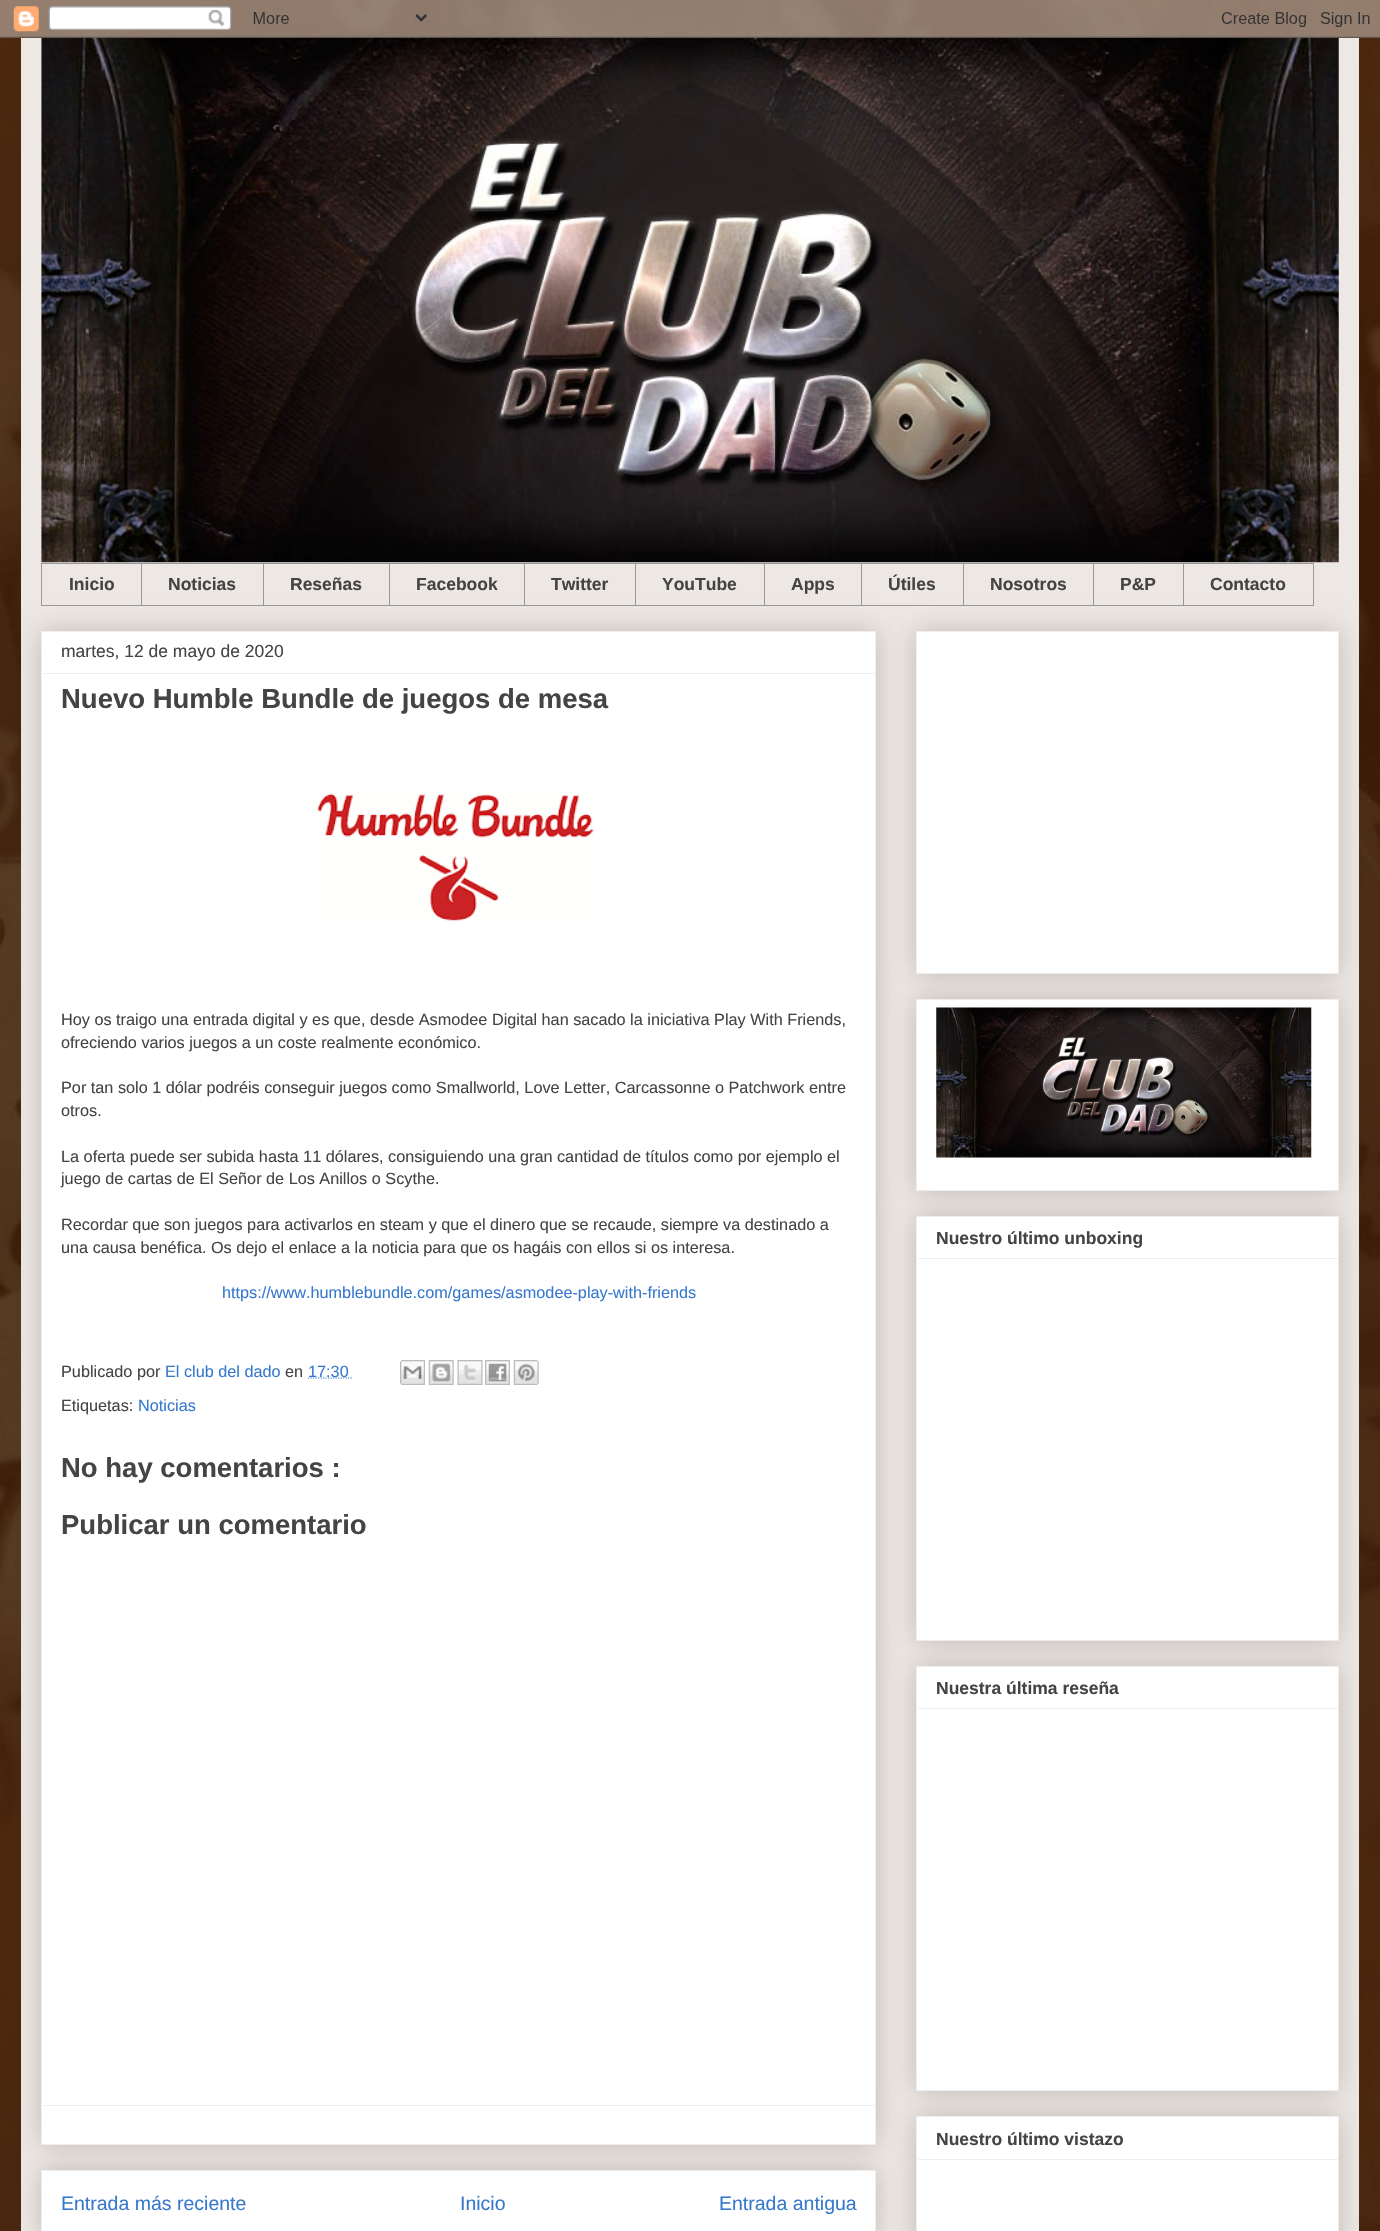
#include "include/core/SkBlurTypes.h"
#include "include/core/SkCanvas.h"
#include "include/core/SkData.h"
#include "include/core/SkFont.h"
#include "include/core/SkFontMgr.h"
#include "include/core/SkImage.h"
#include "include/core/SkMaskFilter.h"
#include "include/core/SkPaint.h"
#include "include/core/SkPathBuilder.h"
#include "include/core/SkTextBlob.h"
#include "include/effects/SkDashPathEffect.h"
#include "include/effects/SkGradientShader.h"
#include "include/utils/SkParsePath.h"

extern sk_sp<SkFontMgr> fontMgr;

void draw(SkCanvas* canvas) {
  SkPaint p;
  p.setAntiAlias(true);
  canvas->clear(SK_ColorWHITE);
  canvas->drawImageRect(SkImages::DeferredFromEncodedData(SkData::MakeFromFileName("images/1.png")), SkRect::MakeLTRB(0, 0, 1380, 2231), SkSamplingOptions());
  p.setColor(SkColorSetRGB(238, 232, 228));
  canvas->drawRect(SkRect::MakeLTRB(21, 38, 1359, 2231), p);
  canvas->drawImageRect(SkImages::DeferredFromEncodedData(SkData::MakeFromFileName("images/3.png")), SkRect::MakeLTRB(41, 37, 1339, 563), SkSamplingOptions());
  canvas->drawImageRect(SkImages::DeferredFromEncodedData(SkData::MakeFromFileName("images/2.png")), SkRect::MakeLTRB(0, 0, 1380, 38), SkSamplingOptions());
  p.setColor(SkColorSetRGB(153, 153, 153));
  canvas->drawRect(SkRect::MakeLTRB(41, 563, 1183, 564), p);
  canvas->drawRect(SkRect::MakeLTRB(41, 605, 1183, 606), p);
  canvas->drawRect(SkRect::MakeLTRB(41, 563, 42, 606), p);
  canvas->drawRect(SkRect::MakeLTRB(141, 563, 142, 606), p);
  canvas->drawRect(SkRect::MakeLTRB(263, 563, 264, 606), p);
  canvas->drawRect(SkRect::MakeLTRB(389, 563, 390, 606), p);
  canvas->drawRect(SkRect::MakeLTRB(524, 563, 525, 606), p);
  canvas->drawRect(SkRect::MakeLTRB(635, 563, 636, 606), p);
  canvas->drawRect(SkRect::MakeLTRB(764, 563, 765, 606), p);
  canvas->drawRect(SkRect::MakeLTRB(861, 563, 862, 606), p);
  canvas->drawRect(SkRect::MakeLTRB(963, 563, 964, 606), p);
  canvas->drawRect(SkRect::MakeLTRB(1093, 563, 1094, 606), p);
  p.setStyle(SkPaint::kStroke_Style);
  p.setStrokeWidth(1);
  canvas->drawRect(SkRect::MakeLTRB(1183.5f, 563.5f, 1313.5f, 605.5f), p);
  p.setStyle(SkPaint::kFill_Style);
  p.setColor(SkColorSetARGB(51, 0, 0, 0));
  p.setMaskFilter(SkMaskFilter::MakeBlur(kNormal_SkBlurStyle, 12.5f));
  canvas->drawRect(SkRect::MakeLTRB(41, 2170, 876, 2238), p);
  p.setMaskFilter(nullptr);
  p.setColor(SK_ColorWHITE);
  canvas->drawRect(SkRect::MakeLTRB(41.5f, 2170.5f, 875.5f, 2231.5f), p);
  p.setStyle(SkPaint::kStroke_Style);
  p.setColor(SkColorSetRGB(238, 238, 238));
  canvas->drawRect(SkRect::MakeLTRB(41.5f, 2170.5f, 875.5f, 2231.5f), p);
  p.setStyle(SkPaint::kFill_Style);
  p.setColor(SkColorSetARGB(51, 0, 0, 0));
  p.setMaskFilter(SkMaskFilter::MakeBlur(kNormal_SkBlurStyle, 12.5f));
  canvas->drawRect(SkRect::MakeLTRB(41, 631, 876, 2145), p);
  p.setMaskFilter(nullptr);
  p.setColor(SK_ColorWHITE);
  canvas->drawRect(SkRect::MakeLTRB(41.5f, 631.5f, 875.5f, 2144.5f), p);
  p.setStyle(SkPaint::kStroke_Style);
  p.setColor(SkColorSetRGB(238, 238, 238));
  canvas->drawRect(SkRect::MakeLTRB(41.5f, 631.5f, 875.5f, 2144.5f), p);
  p.setStyle(SkPaint::kFill_Style);
  canvas->drawRect(SkRect::MakeLTRB(43, 673, 875, 674), p);
  canvas->drawImageRect(SkImages::DeferredFromEncodedData(SkData::MakeFromFileName("images/4.png")), SkRect::MakeLTRB(317, 793, 594, 922), SkSamplingOptions());
  p.setStyle(SkPaint::kStroke_Style);
  p.setStrokeWidth(1.2f);
  p.setColor(SkColorSetRGB(55, 120, 205));
  p.setPathEffect(SkDashPathEffect::Make({{1.25f, 1.25f}}, 0));
  canvas->drawPath(SkPathBuilder().moveTo(308, 1378).lineTo(353, 1378).detach(), p);
  p.setPathEffect(nullptr);
  canvas->drawImageRect(SkImages::DeferredFromEncodedData(SkData::MakeFromFileName("images/5.png")), SkRect::MakeLTRB(400, 1360, 425, 1385), SkSamplingOptions());
  canvas->drawImageRect(SkImages::DeferredFromEncodedData(SkData::MakeFromFileName("images/6.png")), SkRect::MakeLTRB(428, 1360, 454, 1385), SkSamplingOptions());
  canvas->drawImageRect(SkImages::DeferredFromEncodedData(SkData::MakeFromFileName("images/7.png")), SkRect::MakeLTRB(457, 1360, 483, 1385), SkSamplingOptions());
  canvas->drawImageRect(SkImages::DeferredFromEncodedData(SkData::MakeFromFileName("images/8.png")), SkRect::MakeLTRB(485, 1360, 510, 1385), SkSamplingOptions());
  canvas->drawImageRect(SkImages::DeferredFromEncodedData(SkData::MakeFromFileName("images/9.png")), SkRect::MakeLTRB(513, 1360, 539, 1385), SkSamplingOptions());
  p.setStyle(SkPaint::kFill_Style);
  p.setColor(SkColorSetRGB(238, 238, 238));
  canvas->drawRect(SkRect::MakeLTRB(43, 2105, 875, 2106), p);
  p.setColor(SkColorSetARGB(51, 0, 0, 0));
  p.setMaskFilter(SkMaskFilter::MakeBlur(kNormal_SkBlurStyle, 12.5f));
  canvas->drawRect(SkRect::MakeLTRB(916, 631, 1339, 974), p);
  p.setMaskFilter(nullptr);
  p.setColor(SK_ColorWHITE);
  canvas->drawRect(SkRect::MakeLTRB(916.5f, 631.5f, 1338.5f, 973.5f), p);
  p.setStyle(SkPaint::kStroke_Style);
  p.setStrokeWidth(1);
  p.setColor(SkColorSetRGB(238, 238, 238));
  canvas->drawRect(SkRect::MakeLTRB(916.5f, 631.5f, 1338.5f, 973.5f), p);
  p.setStyle(SkPaint::kFill_Style);
  p.setColor(SkColorSetARGB(51, 0, 0, 0));
  p.setMaskFilter(SkMaskFilter::MakeBlur(kNormal_SkBlurStyle, 12.5f));
  canvas->drawRect(SkRect::MakeLTRB(916, 999, 1339, 1191), p);
  p.setMaskFilter(nullptr);
  p.setColor(SK_ColorWHITE);
  canvas->drawRect(SkRect::MakeLTRB(916.5f, 999.5f, 1338.5f, 1190.5f), p);
  p.setStyle(SkPaint::kStroke_Style);
  p.setColor(SkColorSetRGB(238, 238, 238));
  canvas->drawRect(SkRect::MakeLTRB(916.5f, 999.5f, 1338.5f, 1190.5f), p);
  canvas->drawImageRect(SkImages::DeferredFromEncodedData(SkData::MakeFromFileName("images/10.png")), SkRect::MakeLTRB(936, 1007, 1312, 1158), SkSamplingOptions());
  p.setStyle(SkPaint::kFill_Style);
  p.setColor(SkColorSetARGB(51, 0, 0, 0));
  p.setMaskFilter(SkMaskFilter::MakeBlur(kNormal_SkBlurStyle, 12.5f));
  canvas->drawRect(SkRect::MakeLTRB(916, 1216, 1339, 1641), p);
  p.setMaskFilter(nullptr);
  p.setColor(SK_ColorWHITE);
  canvas->drawRect(SkRect::MakeLTRB(916.5f, 1216.5f, 1338.5f, 1640.5f), p);
  p.setStyle(SkPaint::kStroke_Style);
  p.setColor(SkColorSetRGB(238, 238, 238));
  canvas->drawRect(SkRect::MakeLTRB(916.5f, 1216.5f, 1338.5f, 1640.5f), p);
  p.setStyle(SkPaint::kFill_Style);
  canvas->drawRect(SkRect::MakeLTRB(918, 1258, 1338, 1259), p);
  p.setColor(SkColorSetARGB(51, 0, 0, 0));
  p.setMaskFilter(SkMaskFilter::MakeBlur(kNormal_SkBlurStyle, 12.5f));
  canvas->drawRect(SkRect::MakeLTRB(916, 1666, 1339, 2091), p);
  p.setMaskFilter(nullptr);
  p.setColor(SK_ColorWHITE);
  canvas->drawRect(SkRect::MakeLTRB(916.5f, 1666.5f, 1338.5f, 2090.5f), p);
  p.setStyle(SkPaint::kStroke_Style);
  p.setColor(SkColorSetRGB(238, 238, 238));
  canvas->drawRect(SkRect::MakeLTRB(916.5f, 1666.5f, 1338.5f, 2090.5f), p);
  p.setStyle(SkPaint::kFill_Style);
  canvas->drawRect(SkRect::MakeLTRB(918, 1708, 1338, 1709), p);
  p.setColor(SkColorSetARGB(51, 0, 0, 0));
  p.setMaskFilter(SkMaskFilter::MakeBlur(kNormal_SkBlurStyle, 12.5f));
  canvas->drawRect(SkRect::MakeLTRB(916, 2116, 1339, 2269), p);
  p.setMaskFilter(nullptr);
  p.setColor(SK_ColorWHITE);
  canvas->drawRect(SkRect::MakeLTRB(916.5f, 2116.5f, 1338.5f, 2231.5f), p);
  p.setStyle(SkPaint::kStroke_Style);
  p.setColor(SkColorSetRGB(238, 238, 238));
  canvas->drawRect(SkRect::MakeLTRB(916.5f, 2116.5f, 1338.5f, 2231.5f), p);
  p.setStyle(SkPaint::kFill_Style);
  canvas->drawRect(SkRect::MakeLTRB(918, 2159, 1338, 2160), p);
  SkFont font1(fontMgr->matchFamilyStyle("Liberation Sans", SkFontStyle::Bold()), 17.5f);
  font1.setSubpixel(true);
  p.setColor(SkColorSetRGB(68, 68, 68));
  canvas->drawString("Inicio", 69, 590, font1, p);
  canvas->drawString("Noticias", 168, 590, font1, p);
  canvas->drawString("Reseñas", 290, 590, font1, p);
  canvas->drawString("Facebook", 416, 590, font1, p);
  canvas->drawString("Twitter", 551, 590, font1, p);
  canvas->drawString("YouTube", 662, 590, font1, p);
  canvas->drawString("Apps", 791, 590, font1, p);
  canvas->drawString("Útiles", 888, 590, font1, p);
  canvas->drawString("Nosotros", 990, 590, font1, p);
  canvas->drawString("P&P", 1120, 590, font1, p);
  canvas->drawString("Contacto", 1210, 590, font1, p);
  SkFont font2(fontMgr->matchFamilyStyle("Liberation Sans", SkFontStyle::Normal()), 17.5f);
  font2.setSubpixel(true);
  canvas->drawString("martes, 12 de mayo de 2020", 61, 657, font2, p);
  SkFont font3(fontMgr->matchFamilyStyle("Liberation Sans", SkFontStyle::Bold()), 27.5f);
  font3.setSubpixel(true);
  canvas->drawString("Nuevo Humble Bundle de juegos de mesa", 61, 708, font3, p);
  SkFont font4(fontMgr->matchFamilyStyle("Liberation Sans", SkFontStyle::Normal()), 16.25f);
  font4.setSubpixel(true);
  canvas->drawString("Hoy os traigo una entrada digital y es que, desde Asmodee Digital han sacado la iniciativa Play With Friends,", 61, 1025, font4, p);
  canvas->drawString("ofreciendo varios juegos a un coste realmente económico.", 61, 1048, font4, p);
  canvas->drawString("Por tan solo 1 dólar podréis conseguir juegos como Smallworld, Love Letter, Carcassonne o Patchwork entre", 61, 1093, font4, p);
  canvas->drawString("otros.", 61, 1116, font4, p);
  canvas->drawString("La oferta puede ser subida hasta 11 dólares, consiguiendo una gran cantidad de títulos como por ejemplo el", 61, 1162, font4, p);
  canvas->drawString("juego de cartas de El Señor de Los Anillos o Scythe.", 61, 1184, font4, p);
  canvas->drawString("Recordar que son juegos para activarlos en steam y que el dinero que se recaude, siempre va destinado a", 61, 1230, font4, p);
  canvas->drawString("una causa benéfica. Os dejo el enlace a la noticia para que os hagáis con ellos si os interesa.", 61, 1253, font4, p);
  p.setColor(SkColorSetRGB(55, 120, 205));
  canvas->drawString("https://www.humblebundle.com/games/asmodee-play-with-friends", 222, 1298, font4, p);
  p.setColor(SkColorSetRGB(68, 68, 68));
  canvas->drawString("Publicado por", 61, 1377, font4, p);
  p.setColor(SkColorSetRGB(55, 120, 205));
  canvas->drawString("El club del dado", 165, 1377, font4, p);
  p.setColor(SkColorSetRGB(68, 68, 68));
  canvas->drawString("en", 285, 1377, font4, p);
  p.setColor(SkColorSetRGB(55, 120, 205));
  canvas->drawString("17:30", 308, 1377, font4, p);
  p.setColor(SkColorSetRGB(68, 68, 68));
  canvas->drawString("Etiquetas:", 61, 1411, font4, p);
  p.setColor(SkColorSetRGB(55, 120, 205));
  canvas->drawString("Noticias", 138, 1411, font4, p);
  p.setColor(SkColorSetRGB(68, 68, 68));
  canvas->drawString("No hay comentarios :", 61, 1477, font3, p);
  canvas->drawString("Publicar un comentario", 61, 1534, font3, p);
  SkFont font5(fontMgr->matchFamilyStyle("Liberation Sans", SkFontStyle::Normal()), 19.5f);
  font5.setSubpixel(true);
  p.setColor(SkColorSetRGB(55, 120, 205));
  canvas->drawString("Entrada más reciente", 61, 2210, font5, p);
  canvas->drawString("Inicio", 460, 2210, font5, p);
  canvas->drawString("Entrada antigua", 719, 2210, font5, p);
  p.setColor(SkColorSetRGB(68, 68, 68));
  canvas->drawString("Nuestro último unboxing", 936, 1244, font1, p);
  canvas->drawString("Nuestra última reseña", 936, 1694, font1, p);
  canvas->drawString("Nuestro último vistazo", 936, 2145, font1, p);
}
